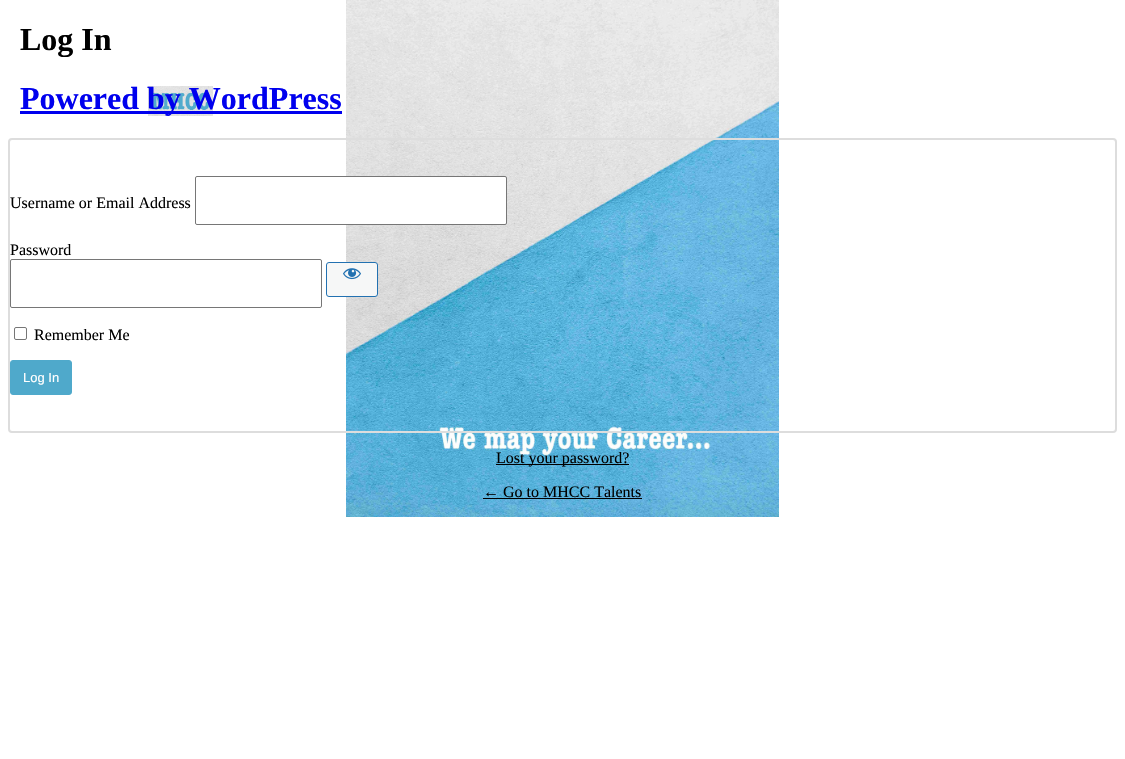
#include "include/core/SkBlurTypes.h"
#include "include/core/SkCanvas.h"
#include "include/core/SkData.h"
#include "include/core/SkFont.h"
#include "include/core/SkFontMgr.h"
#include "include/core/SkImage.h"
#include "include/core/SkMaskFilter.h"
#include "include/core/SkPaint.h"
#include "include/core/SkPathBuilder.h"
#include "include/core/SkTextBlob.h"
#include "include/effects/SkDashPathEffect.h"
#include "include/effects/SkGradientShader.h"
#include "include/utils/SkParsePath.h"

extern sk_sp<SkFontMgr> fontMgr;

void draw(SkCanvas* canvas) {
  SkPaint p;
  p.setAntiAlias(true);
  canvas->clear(SK_ColorWHITE);
  canvas->drawImageRect(SkImages::DeferredFromEncodedData(SkData::MakeFromFileName("images/1.png")), SkRect::MakeLTRB(346, 0, 779, 517), SkSamplingOptions());
  canvas->drawImageRect(SkImages::DeferredFromEncodedData(SkData::MakeFromFileName("images/2.png")), SkRect::MakeLTRB(148, 86, 213, 116), SkSamplingOptions());
  p.setColor(SkColorSetRGB(0, 0, 238));
  canvas->drawRect(SkRect::MakeLTRB(20, 111, 342, 114), p);
  p.setStyle(SkPaint::kStroke_Style);
  p.setStrokeWidth(2);
  p.setColor(SkColorSetRGB(221, 221, 221));
  canvas->drawRoundRect(SkRect::MakeLTRB(9, 139, 1116, 432), 3, 3, p);
  p.setStyle(SkPaint::kFill_Style);
  p.setColor(SK_ColorWHITE);
  canvas->drawRoundRect(SkRect::MakeLTRB(195.5f, 176.5f, 506.5f, 224.5f), 1.5f, 1.5f, p);
  p.setStyle(SkPaint::kStroke_Style);
  p.setStrokeWidth(1);
  p.setColor(SkColorSetRGB(118, 118, 118));
  canvas->drawRoundRect(SkRect::MakeLTRB(195.5f, 176.5f, 506.5f, 224.5f), 1.5f, 1.5f, p);
  canvas->drawRoundRect(SkRect::MakeLTRB(10.5f, 259.5f, 321.5f, 307.5f), 1.5f, 1.5f, p);
  p.setStyle(SkPaint::kFill_Style);
  p.setColor(SkColorSetRGB(246, 247, 247));
  canvas->drawRoundRect(SkRect::MakeLTRB(326.5f, 262.5f, 377.5f, 296.5f), 2.5f, 2.5f, p);
  p.setStyle(SkPaint::kStroke_Style);
  p.setColor(SkColorSetRGB(34, 113, 177));
  canvas->drawRoundRect(SkRect::MakeLTRB(326.5f, 262.5f, 377.5f, 296.5f), 2.5f, 2.5f, p);
  canvas->drawImageRect(SkImages::DeferredFromEncodedData(SkData::MakeFromFileName("images/3.png")), SkRect::MakeLTRB(343, 268, 361, 280), SkSamplingOptions());
  p.setColor(SkColorSetRGB(118, 118, 118));
  canvas->drawRoundRect(SkRect::MakeLTRB(14.5f, 327.5f, 26.5f, 339.5f), 1.5f, 1.5f, p);
  p.setStyle(SkPaint::kFill_Style);
  p.setColor(SkColorSetRGB(79, 169, 203));
  canvas->drawRoundRect(SkRect::MakeLTRB(10.5f, 360.5f, 71.5f, 394.5f), 2.5f, 2.5f, p);
  p.setStyle(SkPaint::kStroke_Style);
  canvas->drawRoundRect(SkRect::MakeLTRB(10.5f, 360.5f, 71.5f, 394.5f), 2.5f, 2.5f, p);
  p.setStyle(SkPaint::kFill_Style);
  p.setColor(SK_ColorBLACK);
  canvas->drawRect(SkRect::MakeLTRB(496, 464, 629, 465), p);
  canvas->drawRect(SkRect::MakeLTRB(483, 498, 642, 499), p);
  SkFont font1(fontMgr->matchFamilyStyle("Liberation Serif", SkFontStyle::Bold()), 32);
  font1.setSubpixel(true);
  canvas->drawString("Log In", 20, 50, font1, p);
  p.setColor(SkColorSetRGB(0, 0, 238));
  canvas->drawString("Powered by WordPress", 20, 109, font1, p);
  SkFont font2(fontMgr->matchFamilyStyle("Liberation Serif", SkFontStyle::Normal()), 16);
  font2.setSubpixel(true);
  p.setColor(SK_ColorBLACK);
  canvas->drawString("Username or Email Address", 10, 208, font2, p);
  canvas->drawString("Password", 10, 255, font2, p);
  canvas->drawString("Remember Me", 34, 340, font2, p);
  SkFont font3(fontMgr->matchFamilyStyle("Liberation Sans", SkFontStyle::Normal()), 13);
  font3.setSubpixel(true);
  p.setColor(SK_ColorWHITE);
  canvas->drawString("Log In", 23, 382, font3, p);
  p.setColor(SK_ColorBLACK);
  canvas->drawString("Lost your password?", 496, 463, font2, p);
  canvas->drawString("← Go to MHCC Talents", 483, 497, font2, p);
}
